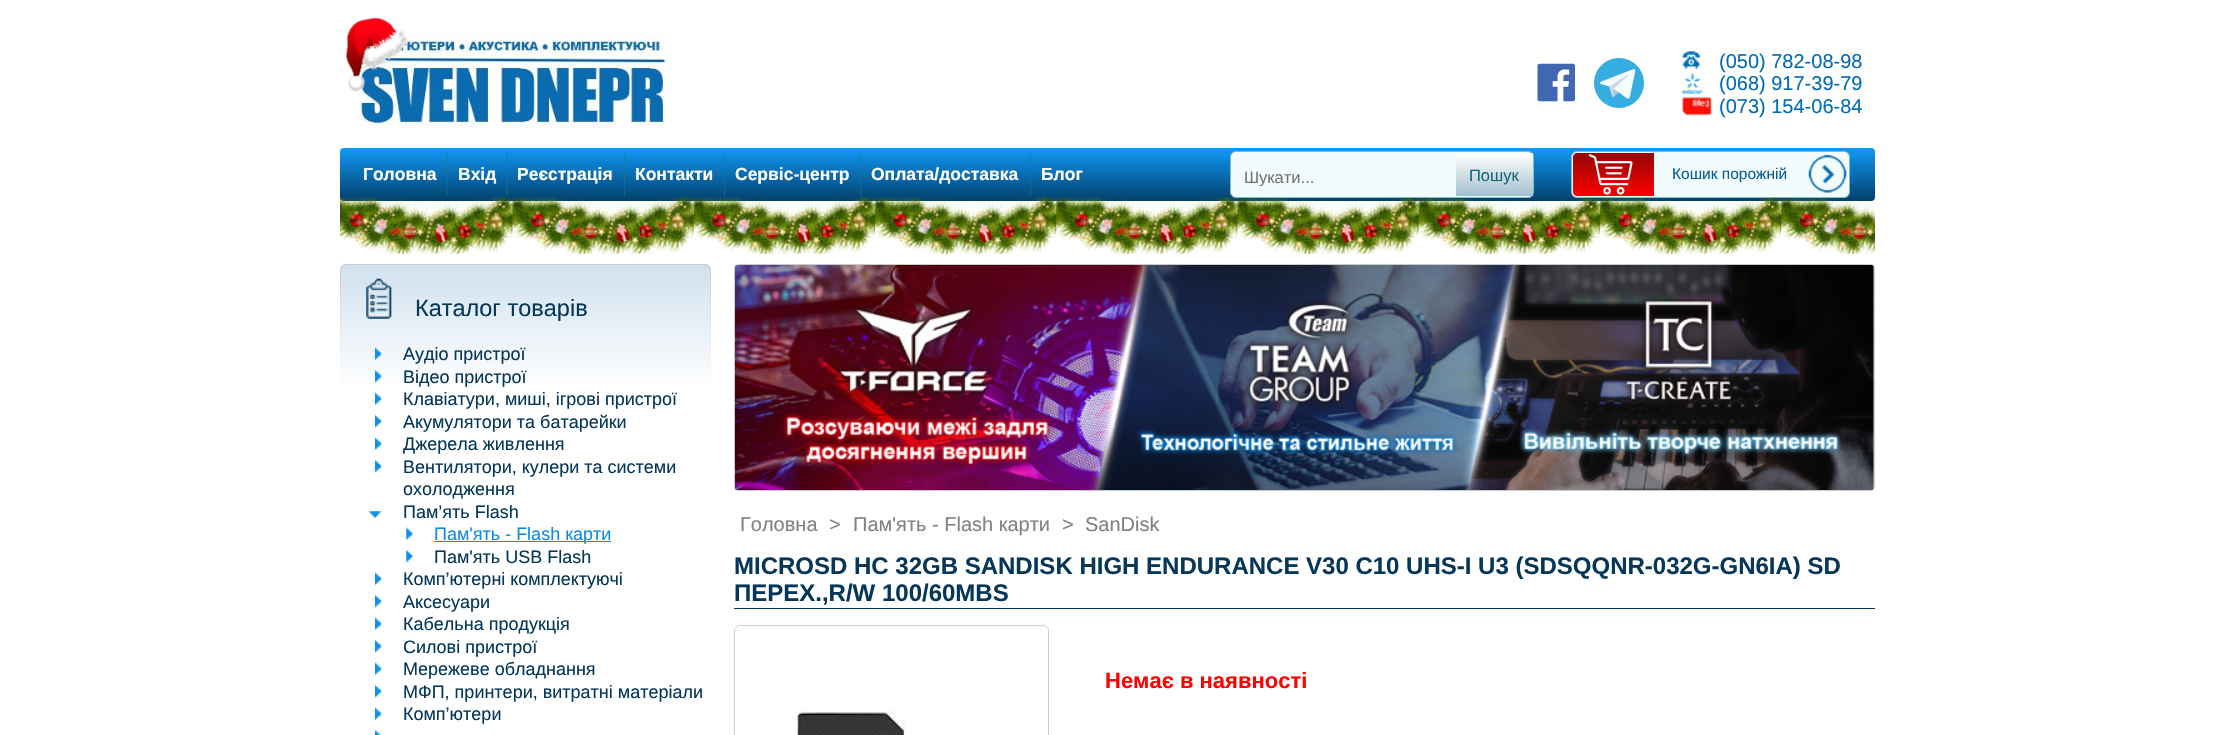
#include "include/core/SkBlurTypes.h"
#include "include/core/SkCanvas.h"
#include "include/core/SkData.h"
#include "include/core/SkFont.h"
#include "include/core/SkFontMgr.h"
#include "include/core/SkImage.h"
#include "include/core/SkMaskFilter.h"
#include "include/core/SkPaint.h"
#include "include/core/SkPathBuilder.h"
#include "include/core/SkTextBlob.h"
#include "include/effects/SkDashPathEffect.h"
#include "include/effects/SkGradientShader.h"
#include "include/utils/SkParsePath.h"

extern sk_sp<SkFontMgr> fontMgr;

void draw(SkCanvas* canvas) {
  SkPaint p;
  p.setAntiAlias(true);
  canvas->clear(SK_ColorWHITE);
  canvas->drawImageRect(SkImages::DeferredFromEncodedData(SkData::MakeFromFileName("images/2.png")), SkRect::MakeLTRB(358, 32, 666, 128), SkSamplingOptions());
  canvas->drawImageRect(SkImages::DeferredFromEncodedData(SkData::MakeFromFileName("images/1.png")), SkRect::MakeLTRB(345, 17, 409, 92), SkSamplingOptions());
  canvas->drawImageRect(SkImages::DeferredFromEncodedData(SkData::MakeFromFileName("images/3.png")), SkRect::MakeLTRB(1537, 63, 1575, 102), SkSamplingOptions());
  canvas->drawImageRect(SkImages::DeferredFromEncodedData(SkData::MakeFromFileName("images/4.png")), SkRect::MakeLTRB(1594, 58, 1644, 108), SkSamplingOptions());
  canvas->drawImageRect(SkImages::DeferredFromEncodedData(SkData::MakeFromFileName("images/5.png")), SkRect::MakeLTRB(1682, 51, 1701, 69), SkSamplingOptions());
  canvas->drawImageRect(SkImages::DeferredFromEncodedData(SkData::MakeFromFileName("images/6.png")), SkRect::MakeLTRB(1682, 73, 1703, 94), SkSamplingOptions());
  canvas->drawImageRect(SkImages::DeferredFromEncodedData(SkData::MakeFromFileName("images/7.png")), SkRect::MakeLTRB(1682, 96, 1712, 116), SkSamplingOptions());
  {
    const SkColor colors[] = {SkColorSetRGB(17, 154, 249), SkColorSetRGB(3, 64, 107)};
    const float stops[] = {0, 1};
    const SkPoint ends[] = {{1108, 147}, {1108, 201}};
    p.setShader(SkGradientShader::MakeLinear(ends, colors, stops, 2, SkTileMode::kClamp));
    p.setAlpha(255);
  }
  canvas->drawRoundRect(SkRect::MakeLTRB(340, 148, 1875, 201), 4, 4, p);
  p.setStyle(SkPaint::kStroke_Style);
  p.setStrokeWidth(1.2f);
  p.setShader(nullptr);
  p.setColor(SkColorSetRGB(3, 133, 146));
  p.setPathEffect(SkDashPathEffect::Make({{1.25f, 1.25f}}, 0));
  canvas->drawPath(SkPathBuilder().moveTo(447, 152.5f).lineTo(447, 196).detach(), p);
  p.setPathEffect(nullptr);
  p.setPathEffect(SkDashPathEffect::Make({{1.25f, 1.25f}}, 0));
  canvas->drawPath(SkPathBuilder().moveTo(507, 152.5f).lineTo(507, 196).detach(), p);
  p.setPathEffect(nullptr);
  p.setPathEffect(SkDashPathEffect::Make({{1.25f, 1.25f}}, 0));
  canvas->drawPath(SkPathBuilder().moveTo(624.5f, 152.5f).lineTo(624.5f, 196).detach(), p);
  p.setPathEffect(nullptr);
  p.setPathEffect(SkDashPathEffect::Make({{1.25f, 1.25f}}, 0));
  canvas->drawPath(SkPathBuilder().moveTo(724.5f, 152.5f).lineTo(724.5f, 196).detach(), p);
  p.setPathEffect(nullptr);
  p.setPathEffect(SkDashPathEffect::Make({{1.25f, 1.25f}}, 0));
  canvas->drawPath(SkPathBuilder().moveTo(860.5f, 152.5f).lineTo(860.5f, 196).detach(), p);
  p.setPathEffect(nullptr);
  p.setPathEffect(SkDashPathEffect::Make({{1.25f, 1.25f}}, 0));
  canvas->drawPath(SkPathBuilder().moveTo(1030.5f, 152.5f).lineTo(1030.5f, 196).detach(), p);
  p.setPathEffect(nullptr);
  p.setStyle(SkPaint::kFill_Style);
  p.setColor(SkColorSetRGB(243, 252, 252));
  canvas->drawRoundRect(SkRect::MakeLTRB(1230.5f, 151.5f, 1533.5f, 197.5f), 5.5f, 5.5f, p);
  p.setStyle(SkPaint::kStroke_Style);
  p.setStrokeWidth(1);
  p.setColor(SkColorSetRGB(127, 193, 200));
  canvas->drawRoundRect(SkRect::MakeLTRB(1230.5f, 151.5f, 1533.5f, 197.5f), 5.5f, 5.5f, p);
  p.setStyle(SkPaint::kFill_Style);
  {
    const SkColor colors[] = {SK_ColorWHITE, SkColorSetRGB(164, 192, 205)};
    const float stops[] = {0, 1};
    const SkPoint ends[] = {{1494, 153}, {1494, 196}};
    p.setShader(SkGradientShader::MakeLinear(ends, colors, stops, 2, SkTileMode::kClamp));
    p.setAlpha(255);
  }
  canvas->drawRect(SkRect::MakeLTRB(1456, 153, 1533, 196), p);
  p.setShader(nullptr);
  p.setColor(SkColorSetRGB(243, 252, 252));
  canvas->drawRoundRect(SkRect::MakeLTRB(1571.5f, 151.5f, 1849.5f, 197.5f), 5.5f, 5.5f, p);
  p.setStyle(SkPaint::kStroke_Style);
  p.setColor(SkColorSetRGB(127, 193, 200));
  canvas->drawRoundRect(SkRect::MakeLTRB(1571.5f, 151.5f, 1849.5f, 197.5f), 5.5f, 5.5f, p);
  p.setStyle(SkPaint::kFill_Style);
  {
    const SkColor colors[] = {SkColorSetRGB(146, 6, 6), SkColorSetRGB(255, 0, 0)};
    const float stops[] = {0, 1};
    const SkPoint ends[] = {{1613, 153}, {1613, 196}};
    p.setShader(SkGradientShader::MakeLinear(ends, colors, stops, 2, SkTileMode::kClamp));
    p.setAlpha(255);
  }
  canvas->drawPath(SkPathBuilder().moveTo(1577, 153).lineTo(1654, 153).lineTo(1654, 196).lineTo(1577, 196).cubicTo(1575, 196, 1573, 194, 1573, 192).lineTo(1573, 157).cubicTo(1573, 155, 1575, 153, 1577, 153).close().detach(), p);
  canvas->drawImageRect(SkImages::DeferredFromEncodedData(SkData::MakeFromFileName("images/8.png")), SkRect::MakeLTRB(1589, 154, 1633, 195), SkSamplingOptions());
  canvas->drawImageRect(SkImages::DeferredFromEncodedData(SkData::MakeFromFileName("images/9.png")), SkRect::MakeLTRB(1808, 154, 1847, 193), SkSamplingOptions());
  canvas->drawImageRect(SkImages::DeferredFromEncodedData(SkData::MakeFromFileName("images/10.png")), SkRect::MakeLTRB(340, 197, 1875, 254), SkSamplingOptions());
  {
    const SkColor colors[] = {SkColorSetRGB(198, 204, 205), SK_ColorWHITE};
    const float stops[] = {0, 1};
    const SkPoint ends[] = {{526, 264}, {526, 389}};
    p.setShader(SkGradientShader::MakeLinear(ends, colors, stops, 2, SkTileMode::kClamp));
    p.setAlpha(255);
  }
  canvas->drawRoundRect(SkRect::MakeLTRB(340, 264, 711, 389), 6, 6, p);
  {
    const SkColor colors[] = {SkColorSetRGB(208, 225, 239), SK_ColorWHITE};
    const float stops[] = {0, 1};
    const SkPoint ends[] = {{526, 265}, {526, 390}};
    p.setShader(SkGradientShader::MakeLinear(ends, colors, stops, 2, SkTileMode::kClamp));
    p.setAlpha(255);
  }
  canvas->drawRoundRect(SkRect::MakeLTRB(341, 265, 710, 390), 6, 6, p);
  canvas->drawImageRect(SkImages::DeferredFromEncodedData(SkData::MakeFromFileName("images/11.png")), SkRect::MakeLTRB(366, 278, 392, 319), SkSamplingOptions());
  canvas->drawImageRect(SkImages::DeferredFromEncodedData(SkData::MakeFromFileName("images/12.png")), SkRect::MakeLTRB(375, 347, 382, 360), SkSamplingOptions());
  canvas->drawImageRect(SkImages::DeferredFromEncodedData(SkData::MakeFromFileName("images/13.png")), SkRect::MakeLTRB(375, 370, 382, 383), SkSamplingOptions());
  canvas->drawImageRect(SkImages::DeferredFromEncodedData(SkData::MakeFromFileName("images/14.png")), SkRect::MakeLTRB(375, 392, 382, 405), SkSamplingOptions());
  canvas->drawImageRect(SkImages::DeferredFromEncodedData(SkData::MakeFromFileName("images/15.png")), SkRect::MakeLTRB(375, 415, 382, 428), SkSamplingOptions());
  canvas->drawImageRect(SkImages::DeferredFromEncodedData(SkData::MakeFromFileName("images/14.png")), SkRect::MakeLTRB(375, 437, 382, 450), SkSamplingOptions());
  canvas->drawImageRect(SkImages::DeferredFromEncodedData(SkData::MakeFromFileName("images/15.png")), SkRect::MakeLTRB(375, 460, 382, 473), SkSamplingOptions());
  canvas->drawImageRect(SkImages::DeferredFromEncodedData(SkData::MakeFromFileName("images/16.png")), SkRect::MakeLTRB(368, 511, 382, 518), SkSamplingOptions());
  canvas->drawImageRect(SkImages::DeferredFromEncodedData(SkData::MakeFromFileName("images/17.png")), SkRect::MakeLTRB(406, 527, 413, 540), SkSamplingOptions());
  p.setShader(nullptr);
  p.setColor(SkColorSetRGB(14, 140, 227));
  canvas->drawRect(SkRect::MakeLTRB(434, 541, 611, 542), p);
  canvas->drawImageRect(SkImages::DeferredFromEncodedData(SkData::MakeFromFileName("images/18.png")), SkRect::MakeLTRB(406, 550, 413, 563), SkSamplingOptions());
  canvas->drawImageRect(SkImages::DeferredFromEncodedData(SkData::MakeFromFileName("images/14.png")), SkRect::MakeLTRB(375, 572, 382, 585), SkSamplingOptions());
  canvas->drawImageRect(SkImages::DeferredFromEncodedData(SkData::MakeFromFileName("images/15.png")), SkRect::MakeLTRB(375, 595, 382, 608), SkSamplingOptions());
  canvas->drawImageRect(SkImages::DeferredFromEncodedData(SkData::MakeFromFileName("images/14.png")), SkRect::MakeLTRB(375, 617, 382, 630), SkSamplingOptions());
  canvas->drawImageRect(SkImages::DeferredFromEncodedData(SkData::MakeFromFileName("images/15.png")), SkRect::MakeLTRB(375, 640, 382, 653), SkSamplingOptions());
  canvas->drawImageRect(SkImages::DeferredFromEncodedData(SkData::MakeFromFileName("images/14.png")), SkRect::MakeLTRB(375, 662, 382, 675), SkSamplingOptions());
  canvas->drawImageRect(SkImages::DeferredFromEncodedData(SkData::MakeFromFileName("images/15.png")), SkRect::MakeLTRB(375, 685, 382, 698), SkSamplingOptions());
  canvas->drawImageRect(SkImages::DeferredFromEncodedData(SkData::MakeFromFileName("images/14.png")), SkRect::MakeLTRB(375, 707, 382, 720), SkSamplingOptions());
  canvas->drawImageRect(SkImages::DeferredFromEncodedData(SkData::MakeFromFileName("images/19.png")), SkRect::MakeLTRB(375, 730, 382, 735), SkSamplingOptions());
  p.setStyle(SkPaint::kStroke_Style);
  p.setColor(SkColorSetRGB(198, 204, 205));
  canvas->drawRoundRect(SkRect::MakeLTRB(734.5f, 264.5f, 1874.5f, 490.5f), 3.5f, 3.5f, p);
  canvas->drawImageRect(SkImages::DeferredFromEncodedData(SkData::MakeFromFileName("images/20.png")), SkRect::MakeLTRB(735, 265, 1874, 490), SkSamplingOptions());
  p.setStyle(SkPaint::kFill_Style);
  p.setColor(SkColorSetRGB(4, 55, 90));
  canvas->drawRect(SkRect::MakeLTRB(734, 608, 1875, 609), p);
  p.setStyle(SkPaint::kStroke_Style);
  p.setColor(SkColorSetRGB(204, 209, 210));
  canvas->drawRoundRect(SkRect::MakeLTRB(734.5f, 625.5f, 1048.5f, 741.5f), 5.5f, 5.5f, p);
  canvas->drawImageRect(SkImages::DeferredFromEncodedData(SkData::MakeFromFileName("images/21.png")), SkRect::MakeLTRB(797, 709, 907, 735), SkSamplingOptions());
  SkFont font1(fontMgr->matchFamilyStyle("Liberation Sans", SkFontStyle::Normal()), 20);
  font1.setSubpixel(true);
  p.setStyle(SkPaint::kFill_Style);
  p.setColor(SkColorSetRGB(0, 108, 183));
  canvas->drawString("(050) 782-08-98", 1719, 68, font1, p);
  canvas->drawString("(068) 917-39-79", 1719, 90, font1, p);
  canvas->drawString("(073) 154-06-84", 1719, 113, font1, p);
  SkFont font2(fontMgr->matchFamilyStyle("Liberation Sans", SkFontStyle::Bold()), 17.5f);
  font2.setSubpixel(true);
  p.setColor(SK_ColorWHITE);
  canvas->drawString("Головна", 363, 180, font2, p);
  canvas->drawString("Вхід", 458, 180, font2, p);
  canvas->drawString("Реєстрація", 517, 180, font2, p);
  canvas->drawString("Контакти", 635, 180, font2, p);
  canvas->drawString("Сервіс-центр", 735, 180, font2, p);
  canvas->drawString("Оплата/доставка", 871, 180, font2, p);
  canvas->drawString("Блог", 1041, 180, font2, p);
  canvas->save();
  canvas->clipRect(SkRect::MakeLTRB(1244, 168, 1444, 186));
  SkFont font3(fontMgr->matchFamilyStyle("Liberation Sans", SkFontStyle::Normal()), 16.5f);
  font3.setSubpixel(true);
  p.setColor(SkColorSetRGB(117, 117, 117));
  canvas->drawString("Шукати...", 1244, 183, font3, p);
  canvas->restore();
  p.setColor(SkColorSetRGB(21, 103, 123));
  canvas->drawString("Пошук", 1469, 181, font3, p);
  SkFont font4(fontMgr->matchFamilyStyle("Liberation Sans", SkFontStyle::Normal()), 15.5f);
  font4.setSubpixel(true);
  p.setColor(SkColorSetRGB(7, 93, 153));
  canvas->drawString("Кошик порожній", 1672, 179, font4, p);
  SkFont font5(fontMgr->matchFamilyStyle("Liberation Sans", SkFontStyle::Normal()), 23.5f);
  font5.setSubpixel(true);
  p.setColor(SkColorSetRGB(4, 55, 90));
  canvas->drawString("Каталог товарів", 415, 316, font5, p);
  SkFont font6(fontMgr->matchFamilyStyle("Liberation Sans", SkFontStyle::Normal()), 18);
  font6.setSubpixel(true);
  canvas->drawString("Аудіо пристрої", 403, 360, font6, p);
  canvas->drawString("Відео пристрої", 403, 383, font6, p);
  canvas->drawString("Клавіатури, миші, ігрові пристрої", 403, 405, font6, p);
  canvas->drawString("Акумулятори та батарейки", 403, 428, font6, p);
  canvas->drawString("Джерела живлення", 403, 450, font6, p);
  canvas->drawString("Вентилятори, кулери та системи", 403, 473, font6, p);
  canvas->drawString("охолодження", 403, 495, font6, p);
  canvas->drawString("Пам’ять Flash", 403, 518, font6, p);
  p.setColor(SkColorSetRGB(14, 140, 227));
  canvas->drawString("Пам'ять - Flash карти", 434, 540, font6, p);
  p.setColor(SkColorSetRGB(4, 55, 90));
  canvas->drawString("Пам'ять USB Flash", 434, 563, font6, p);
  canvas->drawString("Комп’ютерні комплектуючі", 403, 585, font6, p);
  canvas->drawString("Аксесуари", 403, 608, font6, p);
  canvas->drawString("Кабельна продукція", 403, 630, font6, p);
  canvas->drawString("Силові пристрої", 403, 653, font6, p);
  canvas->drawString("Мережеве обладнання", 403, 675, font6, p);
  canvas->drawString("МФП, принтери, витратні матеріали", 403, 698, font6, p);
  canvas->drawString("Комп’ютери", 403, 720, font6, p);
  p.setColor(SkColorSetRGB(129, 129, 129));
  canvas->drawString("Головна", 740, 531, font1, p);
  canvas->drawString(">", 829, 531, font1, p);
  canvas->drawString("Пам'ять - Flash карти", 853, 531, font1, p);
  canvas->drawString(">", 1062, 531, font1, p);
  canvas->drawString("SanDisk", 1085, 531, font1, p);
  SkFont font7(fontMgr->matchFamilyStyle("Liberation Sans", SkFontStyle::Bold()), 24);
  font7.setSubpixel(true);
  p.setColor(SkColorSetRGB(4, 55, 90));
  canvas->drawString("MICROSD HC 32GB SANDISK HIGH ENDURANCE V30 C10 UHS-I U3 (SDSQQNR-032G-GN6IA) SD", 734, 574, font7, p);
  canvas->drawString("ПЕРЕХ.,R/W 100/60MBS", 734, 601, font7, p);
  SkFont font8(fontMgr->matchFamilyStyle("Liberation Sans", SkFontStyle::Bold()), 22);
  font8.setSubpixel(true);
  p.setColor(SkColorSetRGB(255, 0, 0));
  canvas->drawString("Немає в наявності", 1105, 688, font8, p);
}
